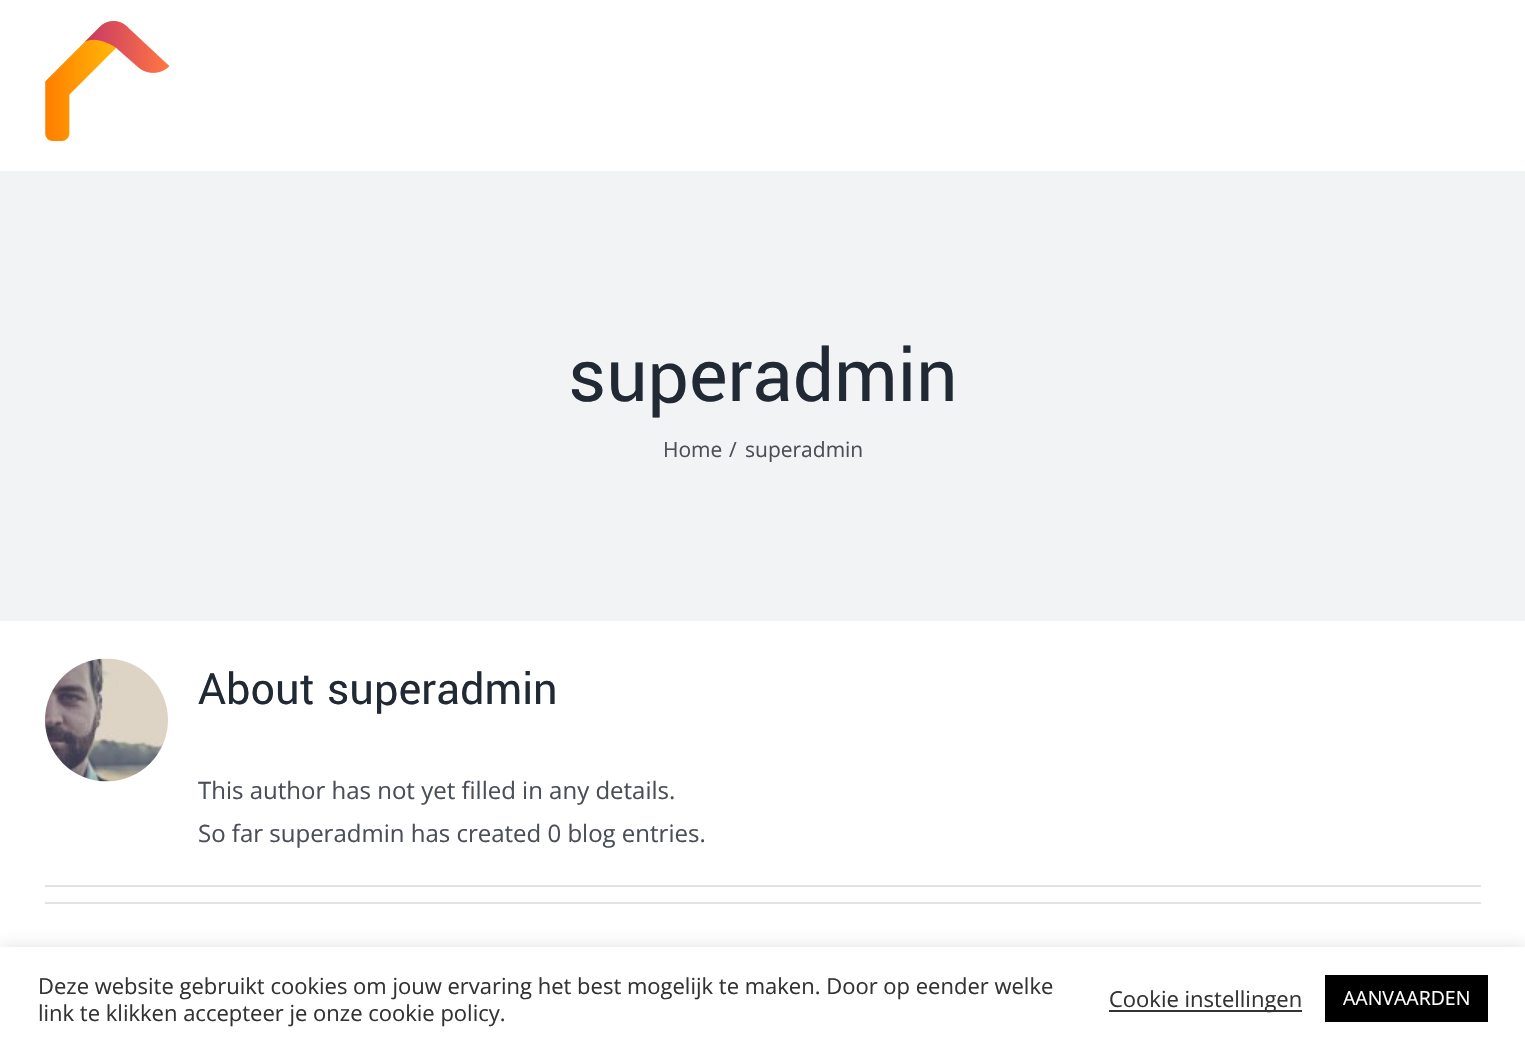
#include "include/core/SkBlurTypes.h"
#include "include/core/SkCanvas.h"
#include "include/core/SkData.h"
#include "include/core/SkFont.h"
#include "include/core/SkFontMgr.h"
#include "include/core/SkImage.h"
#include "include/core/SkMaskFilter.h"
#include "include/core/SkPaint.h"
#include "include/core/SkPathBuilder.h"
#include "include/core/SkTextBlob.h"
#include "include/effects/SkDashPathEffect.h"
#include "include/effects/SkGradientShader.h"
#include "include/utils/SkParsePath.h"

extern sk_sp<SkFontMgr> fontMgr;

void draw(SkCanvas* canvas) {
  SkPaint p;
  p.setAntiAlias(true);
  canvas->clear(SK_ColorWHITE);
  canvas->drawImageRect(SkImages::DeferredFromEncodedData(SkData::MakeFromFileName("images/1.png")), SkRect::MakeLTRB(45, 21, 170, 141), SkSamplingOptions());
  p.setColor(SkColorSetRGB(242, 243, 245));
  canvas->drawRect(SkRect::MakeLTRB(0, 171, 1525, 621), p);
  canvas->drawImageRect(SkImages::DeferredFromEncodedData(SkData::MakeFromFileName("images/2.png")), SkRect::MakeLTRB(45, 658, 168, 782), SkSamplingOptions());
  p.setColor(SkColorSetRGB(226, 226, 226));
  canvas->drawRect(SkRect::MakeLTRB(45, 885, 1481, 887), p);
  canvas->drawRect(SkRect::MakeLTRB(45, 902, 1481, 904), p);
  p.setColor(SkColorSetARGB(77, 172, 171, 171));
  p.setMaskFilter(SkMaskFilter::MakeBlur(kNormal_SkBlurStyle, 7.5f));
  canvas->drawRect(SkRect::MakeLTRB(0, 945, 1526, 1049), p);
  p.setMaskFilter(nullptr);
  p.setColor(SK_ColorWHITE);
  canvas->drawRect(SkRect::MakeLTRB(0, 947, 1525, 1049), p);
  p.setColor(SkColorSetRGB(51, 51, 51));
  canvas->drawRect(SkRect::MakeLTRB(1109, 1010, 1302, 1012), p);
  p.setColor(SK_ColorBLACK);
  canvas->drawRect(SkRect::MakeLTRB(1325, 975, 1488, 1022), p);
  SkFont font1(fontMgr->matchFamilyStyle("Yantramanav", SkFontStyle::Normal()), 81);
  font1.setSubpixel(true);
  p.setColor(SkColorSetRGB(33, 41, 52));
  canvas->drawString("superadmin", 568, 401, font1, p);
  SkFont font2(fontMgr->matchFamilyStyle("Open Sans", SkFontStyle::Normal()), 21);
  font2.setSubpixel(true);
  p.setColor(SkColorSetRGB(74, 78, 87));
  canvas->drawString("Home", 663, 457, font2, p);
  canvas->drawString("/", 729, 457, font2, p);
  canvas->drawString("superadmin", 745, 457, font2, p);
  SkFont font3(fontMgr->matchFamilyStyle("Yantramanav", SkFontStyle::Normal()), 48);
  font3.setSubpixel(true);
  p.setColor(SkColorSetRGB(33, 41, 52));
  canvas->drawString("About superadmin", 198, 704, font3, p);
  SkFont font4(fontMgr->matchFamilyStyle("Open Sans", SkFontStyle::Normal()), 24);
  font4.setSubpixel(true);
  p.setColor(SkColorSetRGB(74, 78, 87));
  canvas->drawString("This author has not yet filled in any details.", 198, 799, font4, p);
  canvas->drawString("So far superadmin has created 0 blog entries.", 198, 842, font4, p);
  SkFont font5(fontMgr->matchFamilyStyle("Open Sans", SkFontStyle::Normal()), 22);
  font5.setSubpixel(true);
  p.setColor(SkColorSetRGB(51, 51, 51));
  canvas->drawString("Deze website gebruikt cookies om jouw ervaring het best mogelijk te maken. Door op eender welke", 38, 994, font5, p);
  canvas->drawString("link te klikken accepteer je onze cookie policy.", 38, 1021, font5, p);
  canvas->drawString("Cookie instellingen", 1109, 1007, font5, p);
  SkFont font6(fontMgr->matchFamilyStyle("Open Sans", SkFontStyle::Normal()), 19.5f);
  font6.setSubpixel(true);
  p.setColor(SK_ColorWHITE);
  canvas->drawString("AANVAARDEN", 1343, 1005, font6, p);
}
